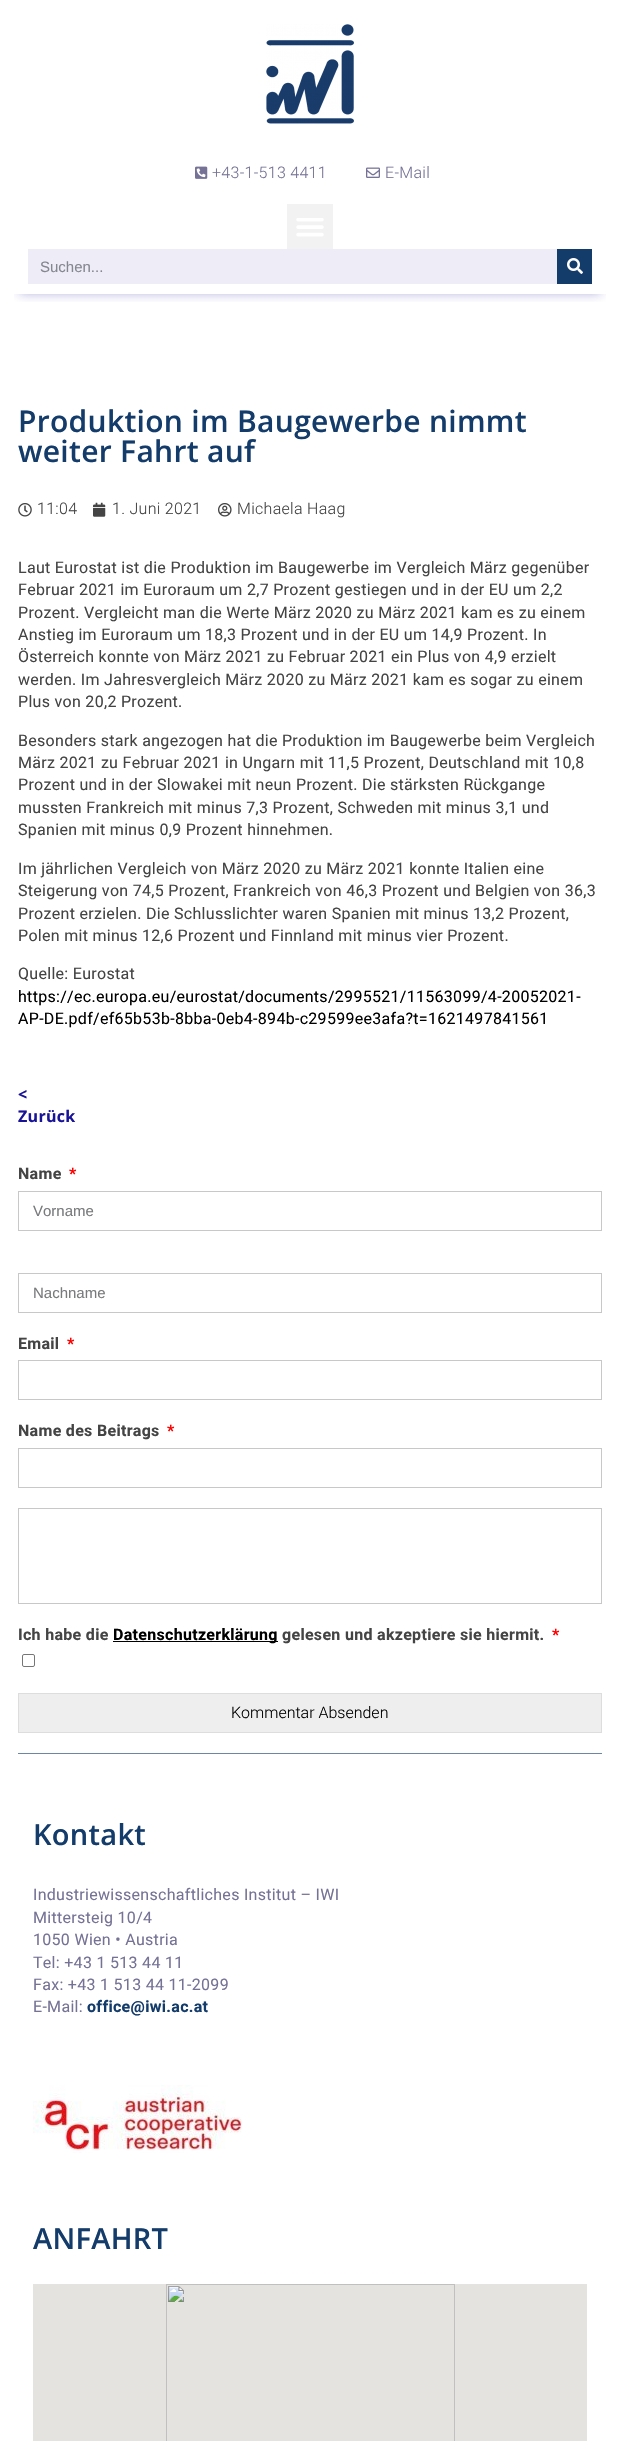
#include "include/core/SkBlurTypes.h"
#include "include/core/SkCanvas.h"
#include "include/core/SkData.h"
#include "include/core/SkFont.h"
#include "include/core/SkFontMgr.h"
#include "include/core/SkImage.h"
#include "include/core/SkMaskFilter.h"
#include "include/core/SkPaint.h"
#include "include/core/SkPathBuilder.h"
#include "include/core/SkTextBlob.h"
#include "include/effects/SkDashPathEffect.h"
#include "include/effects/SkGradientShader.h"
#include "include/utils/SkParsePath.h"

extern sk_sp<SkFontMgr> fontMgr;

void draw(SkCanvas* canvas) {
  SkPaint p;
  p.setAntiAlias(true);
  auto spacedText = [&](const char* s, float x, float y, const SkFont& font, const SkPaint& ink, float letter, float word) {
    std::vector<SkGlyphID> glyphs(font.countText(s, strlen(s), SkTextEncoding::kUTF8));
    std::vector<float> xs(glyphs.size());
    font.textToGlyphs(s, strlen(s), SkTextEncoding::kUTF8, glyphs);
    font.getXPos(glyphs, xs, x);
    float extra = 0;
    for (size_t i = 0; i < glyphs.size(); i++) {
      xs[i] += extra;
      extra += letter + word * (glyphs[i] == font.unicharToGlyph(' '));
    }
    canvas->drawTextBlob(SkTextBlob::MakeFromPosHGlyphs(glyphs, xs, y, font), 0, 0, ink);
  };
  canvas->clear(SK_ColorWHITE);
  canvas->drawImageRect(SkImages::DeferredFromEncodedData(SkData::MakeFromFileName("images/1.png")), SkRect::MakeLTRB(266, 24, 354, 124), SkSamplingOptions());
  canvas->drawImageRect(SkImages::DeferredFromEncodedData(SkData::MakeFromFileName("images/2.png")), SkRect::MakeLTRB(195, 166, 208, 179), SkSamplingOptions());
  canvas->drawImageRect(SkImages::DeferredFromEncodedData(SkData::MakeFromFileName("images/3.png")), SkRect::MakeLTRB(366, 167, 380, 178), SkSamplingOptions());
  canvas->save();
  canvas->clipRect(SkRect::MakeLTRB(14, 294, 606, 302));
  p.setColor(SkColorSetARGB(79, 25, 19, 151));
  p.setMaskFilter(SkMaskFilter::MakeBlur(kNormal_SkBlurStyle, 5));
  canvas->drawRect(SkRect::MakeLTRB(19, 216, 601, 294), p);
  p.setMaskFilter(nullptr);
  canvas->restore();
  p.setColor(SkColorSetRGB(242, 242, 242));
  canvas->drawRect(SkRect::MakeLTRB(287, 204, 333, 249), p);
  canvas->drawImageRect(SkImages::DeferredFromEncodedData(SkData::MakeFromFileName("images/4.png")), SkRect::MakeLTRB(296, 218, 324, 237), SkSamplingOptions());
  p.setColor(SkColorSetRGB(237, 236, 247));
  canvas->drawRect(SkRect::MakeLTRB(28, 249, 557, 284), p);
  p.setColor(SkColorSetRGB(20, 60, 107));
  canvas->drawRect(SkRect::MakeLTRB(557, 249, 592, 284), p);
  canvas->drawImageRect(SkImages::DeferredFromEncodedData(SkData::MakeFromFileName("images/5.png")), SkRect::MakeLTRB(567, 258, 583, 274), SkSamplingOptions());
  canvas->drawImageRect(SkImages::DeferredFromEncodedData(SkData::MakeFromFileName("images/6.png")), SkRect::MakeLTRB(18, 503, 32, 517), SkSamplingOptions());
  canvas->drawImageRect(SkImages::DeferredFromEncodedData(SkData::MakeFromFileName("images/7.png")), SkRect::MakeLTRB(93, 502, 106, 517), SkSamplingOptions());
  canvas->drawImageRect(SkImages::DeferredFromEncodedData(SkData::MakeFromFileName("images/8.png")), SkRect::MakeLTRB(218, 503, 232, 517), SkSamplingOptions());
  p.setStyle(SkPaint::kStroke_Style);
  p.setStrokeWidth(1);
  p.setColor(SkColorSetRGB(200, 200, 200));
  canvas->drawRect(SkRect::MakeLTRB(18.5f, 1191.5f, 601.5f, 1230.5f), p);
  canvas->drawRect(SkRect::MakeLTRB(18.5f, 1273.5f, 601.5f, 1312.5f), p);
  canvas->drawRect(SkRect::MakeLTRB(18.5f, 1360.5f, 601.5f, 1399.5f), p);
  canvas->drawRect(SkRect::MakeLTRB(18.5f, 1448.5f, 601.5f, 1487.5f), p);
  canvas->drawRect(SkRect::MakeLTRB(18.5f, 1508.5f, 601.5f, 1603.5f), p);
  p.setStyle(SkPaint::kFill_Style);
  p.setColor(SK_ColorBLACK);
  canvas->drawRect(SkRect::MakeLTRB(113, 1641, 278, 1642), p);
  p.setStyle(SkPaint::kStroke_Style);
  p.setColor(SkColorSetRGB(118, 118, 118));
  canvas->drawRoundRect(SkRect::MakeLTRB(22.5f, 1654.5f, 34.5f, 1666.5f), 1.5f, 1.5f, p);
  p.setStyle(SkPaint::kFill_Style);
  p.setColor(SkColorSetRGB(238, 238, 238));
  canvas->drawRect(SkRect::MakeLTRB(18.5f, 1693.5f, 601.5f, 1732.5f), p);
  p.setStyle(SkPaint::kStroke_Style);
  p.setColor(SkColorSetRGB(221, 221, 221));
  canvas->drawRect(SkRect::MakeLTRB(18.5f, 1693.5f, 601.5f, 1732.5f), p);
  p.setStyle(SkPaint::kFill_Style);
  p.setColor(SkColorSetRGB(109, 134, 163));
  canvas->drawRect(SkRect::MakeLTRB(18, 1753, 602, 1754), p);
  canvas->drawImageRect(SkImages::DeferredFromEncodedData(SkData::MakeFromFileName("images/9.png")), SkRect::MakeLTRB(33, 2085, 242, 2153), SkSamplingOptions());
  canvas->drawImageRect(SkImages::DeferredFromEncodedData(SkData::MakeFromFileName("images/10.png")), SkRect::MakeLTRB(33, 2284, 587, 2441), SkSamplingOptions());
  SkFont font1(fontMgr->matchFamilyStyle("Roboto", SkFontStyle(300, SkFontStyle::kNormal_Width, SkFontStyle::kUpright_Slant)), 16);
  font1.setSubpixel(true);
  p.setColor(SkColorSetRGB(117, 114, 150));
  spacedText("+43-1-513 4411", 212, 178, font1, p, 0.3f, 0);
  spacedText("E-Mail", 385, 178, font1, p, 0.3f, 0);
  SkFont font2(fontMgr->matchFamilyStyle("Liberation Sans", SkFontStyle::Normal()), 15);
  font2.setSubpixel(true);
  p.setColor(SkColorSetRGB(133, 135, 144));
  canvas->drawString("Suchen...", 40, 272, font2, p);
  SkFont font3(fontMgr->matchFamilyStyle("Open Sans", SkFontStyle(600, SkFontStyle::kNormal_Width, SkFontStyle::kUpright_Slant)), 30);
  font3.setSubpixel(true);
  p.setColor(SkColorSetRGB(20, 60, 107));
  spacedText("Produktion im Baugewerbe nimmt", 18, 432, font3, p, 0.3f, 0);
  spacedText("weiter Fahrt auf", 18, 462, font3, p, 0.3f, 0);
  p.setColor(SkColorSetRGB(68, 68, 68));
  spacedText("11:04", 37, 514, font1, p, 0.3f, 0);
  spacedText("1. Juni 2021", 112, 514, font1, p, 0.3f, 0);
  spacedText("Michaela Haag", 237, 514, font1, p, 0.3f, 0);
  SkFont font4(fontMgr->matchFamilyStyle("Roboto", SkFontStyle::Normal()), 16);
  font4.setSubpixel(true);
  spacedText("Laut Eurostat ist die Produktion im Baugewerbe im Vergleich März gegenüber", 18, 573, font4, p, 0.3f, 0);
  spacedText("Februar 2021 im Euroraum um 2,7 Prozent gestiegen und in der EU um 2,2", 18, 595, font4, p, 0.3f, 0);
  spacedText("Prozent. Vergleicht man die Werte März 2020 zu März 2021 kam es zu einem", 18, 618, font4, p, 0.3f, 0);
  spacedText("Anstieg im Euroraum um 18,3 Prozent und in der EU um 14,9 Prozent. In", 18, 640, font4, p, 0.3f, 0);
  spacedText("Österreich konnte von März 2021 zu Februar 2021 ein Plus von 4,9 erzielt", 18, 662, font4, p, 0.3f, 0);
  spacedText("werden. Im Jahresvergleich März 2020 zu März 2021 kam es sogar zu einem", 18, 685, font4, p, 0.3f, 0);
  spacedText("Plus von 20,2 Prozent.", 18, 707, font4, p, 0.3f, 0);
  spacedText("Besonders stark angezogen hat die Produktion im Baugewerbe beim Vergleich", 18, 746, font4, p, 0.3f, 0);
  spacedText("März 2021 zu Februar 2021 in Ungarn mit 11,5 Prozent, Deutschland mit 10,8", 18, 768, font4, p, 0.3f, 0);
  spacedText("Prozent und in der Slowakei mit neun Prozent. Die stärksten Rückgange", 18, 790, font4, p, 0.3f, 0);
  spacedText("mussten Frankreich mit minus 7,3 Prozent, Schweden mit minus 3,1 und", 18, 813, font4, p, 0.3f, 0);
  spacedText("Spanien mit minus 0,9 Prozent hinnehmen.", 18, 835, font4, p, 0.3f, 0);
  spacedText("Im jährlichen Vergleich von März 2020 zu März 2021 konnte Italien eine", 18, 874, font4, p, 0.3f, 0);
  spacedText("Steigerung von 74,5 Prozent, Frankreich von 46,3 Prozent und Belgien von 36,3", 18, 896, font4, p, 0.3f, 0);
  spacedText("Prozent erzielen. Die Schlusslichter waren Spanien mit minus 13,2 Prozent,", 18, 919, font4, p, 0.3f, 0);
  spacedText("Polen mit minus 12,6 Prozent und Finnland mit minus vier Prozent.", 18, 941, font4, p, 0.3f, 0);
  spacedText("Quelle: Eurostat", 18, 979, font4, p, 0.3f, 0);
  p.setColor(SK_ColorBLACK);
  spacedText("https://ec.europa.eu/eurostat/documents/2995521/11563099/4-20052021-", 18, 1002, font4, p, 0.3f, 0);
  spacedText("AP-DE.pdf/ef65b53b-8bba-0eb4-894b-c29599ee3afa?t=1621497841561", 18, 1024, font4, p, 0.3f, 0);
  SkFont font5(fontMgr->matchFamilyStyle("Open Sans", SkFontStyle::Bold()), 16);
  font5.setSubpixel(true);
  p.setColor(SkColorSetRGB(25, 19, 151));
  spacedText("<", 18, 1100, font5, p, 0.3f, 0);
  spacedText("Zurück", 18, 1122, font5, p, 0.3f, 0);
  SkFont font6(fontMgr->matchFamilyStyle("Roboto", SkFontStyle::Bold()), 16);
  font6.setSubpixel(true);
  p.setColor(SkColorSetRGB(68, 68, 68));
  spacedText("Name", 18, 1179, font6, p, 0.3f, 0);
  p.setColor(SkColorSetRGB(255, 0, 0));
  spacedText("*", 69, 1179, font6, p, 0.3f, 0);
  p.setColor(SkColorSetRGB(121, 122, 124));
  canvas->drawString("Vorname", 33, 1216, font2, p);
  canvas->drawString("Nachname", 33, 1298, font2, p);
  p.setColor(SkColorSetRGB(68, 68, 68));
  spacedText("Email", 18, 1349, font6, p, 0.3f, 0);
  p.setColor(SkColorSetRGB(255, 0, 0));
  spacedText("*", 67, 1349, font6, p, 0.3f, 0);
  p.setColor(SkColorSetRGB(68, 68, 68));
  spacedText("Name des Beitrags", 18, 1436, font6, p, 0.3f, 0);
  p.setColor(SkColorSetRGB(255, 0, 0));
  spacedText("*", 167, 1436, font6, p, 0.3f, 0);
  p.setColor(SkColorSetRGB(68, 68, 68));
  spacedText("Ich habe die", 18, 1640, font6, p, 0.3f, 0);
  p.setColor(SK_ColorBLACK);
  spacedText("Datenschutzerklärung", 113, 1640, font6, p, 0.3f, 0);
  p.setColor(SkColorSetRGB(68, 68, 68));
  spacedText("gelesen und akzeptiere sie hiermit.", 282, 1640, font6, p, 0.3f, 0);
  p.setColor(SkColorSetRGB(255, 0, 0));
  spacedText("*", 552, 1640, font6, p, 0.3f, 0);
  p.setColor(SK_ColorBLACK);
  canvas->drawString("Kommentar Absenden", 231, 1718, font1, p);
  SkFont font7(fontMgr->matchFamilyStyle("Open Sans", SkFontStyle(600, SkFontStyle::kNormal_Width, SkFontStyle::kUpright_Slant)), 29);
  font7.setSubpixel(true);
  p.setColor(SkColorSetRGB(20, 60, 107));
  spacedText("Kontakt", 33, 1845, font7, p, 0.3f, 0);
  p.setColor(SkColorSetRGB(117, 114, 150));
  spacedText("Industriewissenschaftliches Institut – IWI", 33, 1900, font4, p, 0.3f, 0);
  spacedText("Mittersteig 10/4", 33, 1923, font4, p, 0.3f, 0);
  spacedText("1050 Wien • Austria", 33, 1945, font4, p, 0.3f, 0);
  spacedText("Tel: +43 1 513 44 11", 33, 1968, font4, p, 0.3f, 0);
  spacedText("Fax: +43 1 513 44 11-2099", 33, 1990, font4, p, 0.3f, 0);
  spacedText("E-Mail:", 33, 2012, font4, p, 0.3f, 0);
  p.setColor(SkColorSetRGB(20, 60, 107));
  spacedText("office@iwi.ac.at", 87, 2012, font6, p, 0.3f, 0);
  spacedText("ANFAHRT", 33, 2249, font7, p, 0.3f, 0);
}
